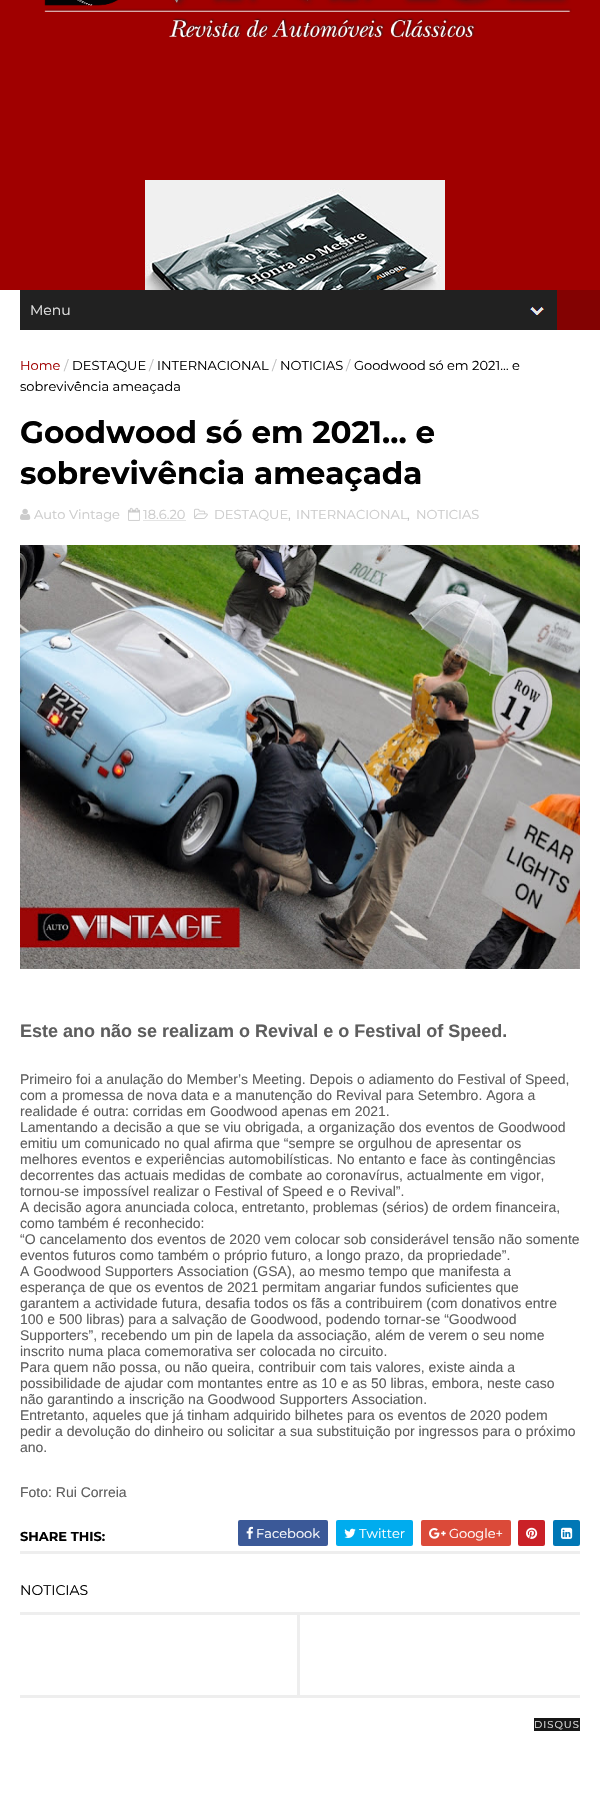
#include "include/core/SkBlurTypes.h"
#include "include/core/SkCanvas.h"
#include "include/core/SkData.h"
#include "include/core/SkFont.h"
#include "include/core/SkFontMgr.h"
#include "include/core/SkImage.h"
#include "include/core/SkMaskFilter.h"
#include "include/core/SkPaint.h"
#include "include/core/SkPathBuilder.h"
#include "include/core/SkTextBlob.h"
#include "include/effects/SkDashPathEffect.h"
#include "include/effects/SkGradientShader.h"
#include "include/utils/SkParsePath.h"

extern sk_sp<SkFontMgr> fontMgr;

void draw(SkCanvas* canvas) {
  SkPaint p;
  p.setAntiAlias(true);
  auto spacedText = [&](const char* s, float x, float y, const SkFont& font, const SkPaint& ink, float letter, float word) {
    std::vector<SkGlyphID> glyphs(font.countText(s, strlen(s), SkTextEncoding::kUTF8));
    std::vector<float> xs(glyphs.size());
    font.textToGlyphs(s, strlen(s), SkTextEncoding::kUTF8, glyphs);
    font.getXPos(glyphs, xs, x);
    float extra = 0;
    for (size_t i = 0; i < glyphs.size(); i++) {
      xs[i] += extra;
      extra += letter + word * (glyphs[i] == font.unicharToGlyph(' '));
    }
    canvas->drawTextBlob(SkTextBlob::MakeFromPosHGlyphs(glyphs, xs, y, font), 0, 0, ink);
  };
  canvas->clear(SK_ColorWHITE);
  p.setColor(SkColorSetRGB(160, 0, 0));
  canvas->drawRect(SkRect::MakeLTRB(0, 0, 600, 290), p);
  canvas->drawImageRect(SkImages::DeferredFromEncodedData(SkData::MakeFromFileName("images/1.png")), SkRect::MakeLTRB(44, 0, 572, 38), SkSamplingOptions());
  canvas->drawImageRect(SkImages::DeferredFromEncodedData(SkData::MakeFromFileName("images/2.png")), SkRect::MakeLTRB(145, 180, 445, 290), SkSamplingOptions());
  p.setColor(SkColorSetRGB(131, 2, 2));
  canvas->drawRect(SkRect::MakeLTRB(557, 290, 600, 330), p);
  p.setColor(SkColorSetRGB(33, 33, 33));
  canvas->drawRect(SkRect::MakeLTRB(20, 290, 557, 330), p);
  canvas->drawImageRect(SkImages::DeferredFromEncodedData(SkData::MakeFromFileName("images/3.png")), SkRect::MakeLTRB(530, 307, 544, 315), SkSamplingOptions());
  canvas->drawImageRect(SkImages::DeferredFromEncodedData(SkData::MakeFromFileName("images/4.png")), SkRect::MakeLTRB(20, 508, 31, 520), SkSamplingOptions());
  canvas->drawImageRect(SkImages::DeferredFromEncodedData(SkData::MakeFromFileName("images/5.png")), SkRect::MakeLTRB(128, 507, 140, 521), SkSamplingOptions());
  p.setStyle(SkPaint::kStroke_Style);
  p.setStrokeWidth(1);
  p.setColor(SkColorSetRGB(203, 203, 203));
  p.setPathEffect(SkDashPathEffect::Make({{1, 1}}, 0));
  canvas->drawPath(SkPathBuilder().moveTo(143.5f, 520.5f).lineTo(186, 520.5f).detach(), p);
  p.setPathEffect(nullptr);
  canvas->drawImageRect(SkImages::DeferredFromEncodedData(SkData::MakeFromFileName("images/6.png")), SkRect::MakeLTRB(194, 508, 208, 519), SkSamplingOptions());
  canvas->drawImageRect(SkImages::DeferredFromEncodedData(SkData::MakeFromFileName("images/7.png")), SkRect::MakeLTRB(20, 545, 580, 969), SkSamplingOptions());
  p.setStyle(SkPaint::kFill_Style);
  p.setColor(SkColorSetRGB(238, 238, 238));
  canvas->drawRect(SkRect::MakeLTRB(20, 1551, 580, 1554), p);
  p.setColor(SkColorSetRGB(59, 89, 152));
  canvas->drawRoundRect(SkRect::MakeLTRB(238, 1520, 328, 1546), 2, 2, p);
  canvas->drawImageRect(SkImages::DeferredFromEncodedData(SkData::MakeFromFileName("images/8.png")), SkRect::MakeLTRB(246, 1526, 253, 1539), SkSamplingOptions());
  p.setColor(SkColorSetRGB(0, 172, 238));
  canvas->drawRoundRect(SkRect::MakeLTRB(336, 1520, 413, 1546), 2, 2, p);
  canvas->drawImageRect(SkImages::DeferredFromEncodedData(SkData::MakeFromFileName("images/9.png")), SkRect::MakeLTRB(344, 1528, 356, 1538), SkSamplingOptions());
  p.setColor(SkColorSetRGB(219, 74, 57));
  canvas->drawRoundRect(SkRect::MakeLTRB(421, 1520, 511, 1546), 2, 2, p);
  canvas->drawImageRect(SkImages::DeferredFromEncodedData(SkData::MakeFromFileName("images/10.png")), SkRect::MakeLTRB(429, 1528, 446, 1539), SkSamplingOptions());
  p.setColor(SkColorSetRGB(202, 33, 39));
  canvas->drawRoundRect(SkRect::MakeLTRB(518, 1520, 545, 1546), 2, 2, p);
  canvas->drawImageRect(SkImages::DeferredFromEncodedData(SkData::MakeFromFileName("images/11.png")), SkRect::MakeLTRB(526, 1527, 538, 1539), SkSamplingOptions());
  p.setColor(SkColorSetRGB(0, 119, 181));
  canvas->drawRoundRect(SkRect::MakeLTRB(553, 1520, 580, 1546), 2, 2, p);
  canvas->drawImageRect(SkImages::DeferredFromEncodedData(SkData::MakeFromFileName("images/12.png")), SkRect::MakeLTRB(561, 1527, 573, 1539), SkSamplingOptions());
  p.setColor(SkColorSetRGB(238, 238, 238));
  canvas->drawRect(SkRect::MakeLTRB(20, 1612, 580, 1615), p);
  canvas->drawRect(SkRect::MakeLTRB(20, 1695, 580, 1698), p);
  canvas->drawRect(SkRect::MakeLTRB(297, 1615, 300, 1695), p);
  p.setColor(SkColorSetRGB(23, 23, 23));
  canvas->drawRect(SkRect::MakeLTRB(534, 1718, 580, 1731), p);
  SkFont font1(fontMgr->matchFamilyStyle("Montserrat", SkFontStyle::Normal()), 14);
  font1.setSubpixel(true);
  p.setColor(SkColorSetRGB(228, 228, 228));
  canvas->drawString("Menu", 30, 315, font1, p);
  SkFont font2(fontMgr->matchFamilyStyle("Montserrat", SkFontStyle::Normal()), 13);
  font2.setSubpixel(true);
  p.setColor(SkColorSetRGB(160, 0, 0));
  canvas->drawString("Home", 20, 370, font2, p);
  p.setColor(SkColorSetRGB(189, 189, 189));
  canvas->drawString("/", 64, 370, font2, p);
  p.setColor(SkColorSetRGB(1, 1, 1));
  canvas->drawString("DESTAQUE", 72, 370, font2, p);
  p.setColor(SkColorSetRGB(189, 189, 189));
  canvas->drawString("/", 149, 370, font2, p);
  p.setColor(SkColorSetRGB(1, 1, 1));
  canvas->drawString("INTERNACIONAL", 157, 370, font2, p);
  p.setColor(SkColorSetRGB(189, 189, 189));
  canvas->drawString("/", 272, 370, font2, p);
  p.setColor(SkColorSetRGB(1, 1, 1));
  canvas->drawString("NOTICIAS", 280, 370, font2, p);
  p.setColor(SkColorSetRGB(189, 189, 189));
  canvas->drawString("/", 346, 370, font2, p);
  p.setColor(SkColorSetRGB(1, 1, 1));
  canvas->drawString("Goodwood só em 2021… e", 354, 370, font2, p);
  canvas->drawString("sobrevivência ameaçada", 20, 391, font2, p);
  SkFont font3(fontMgr->matchFamilyStyle("Montserrat", SkFontStyle::Bold()), 31);
  font3.setSubpixel(true);
  canvas->drawString("Goodwood só em 2021… e", 20, 443, font3, p);
  canvas->drawString("sobrevivência ameaçada", 20, 484, font3, p);
  p.setColor(SkColorSetRGB(203, 203, 203));
  canvas->drawString("Auto Vintage", 34, 519, font2, p);
  canvas->drawString("18.6.20", 143, 519, font2, p);
  canvas->drawString("DESTAQUE", 214, 519, font2, p);
  p.setColor(SkColorSetRGB(189, 189, 189));
  canvas->drawString(",", 288, 519, font2, p);
  p.setColor(SkColorSetRGB(203, 203, 203));
  canvas->drawString("INTERNACIONAL", 296, 519, font2, p);
  p.setColor(SkColorSetRGB(189, 189, 189));
  canvas->drawString(",", 407, 519, font2, p);
  p.setColor(SkColorSetRGB(203, 203, 203));
  canvas->drawString("NOTICIAS", 416, 519, font2, p);
  SkFont font4(fontMgr->matchFamilyStyle("Liberation Sans", SkFontStyle::Bold()), 18);
  font4.setSubpixel(true);
  p.setColor(SkColorSetRGB(94, 94, 94));
  canvas->drawString("Este ano não se realizam o Revival e o Festival of Speed.", 20, 1037, font4, p);
  SkFont font5(fontMgr->matchFamilyStyle("Liberation Sans", SkFontStyle::Normal()), 14);
  font5.setSubpixel(true);
  canvas->drawString("Primeiro foi a anulação do Member’s Meeting. Depois o adiamento do Festival of Speed,", 20, 1084, font5, p);
  canvas->drawString("com a promessa de nova data e a manutenção do Revival para Setembro. Agora a", 20, 1100, font5, p);
  canvas->drawString("realidade é outra: corridas em Goodwood apenas em 2021.", 20, 1116, font5, p);
  canvas->drawString("Lamentando a decisão a que se viu obrigada, a organização dos eventos de Goodwood", 20, 1132, font5, p);
  canvas->drawString("emitiu um comunicado no qual afirma que “sempre se orgulhou de apresentar os", 20, 1148, font5, p);
  canvas->drawString("melhores eventos e experiências automobilísticas. No entanto e face às contingências", 20, 1164, font5, p);
  canvas->drawString("decorrentes das actuais medidas de combate ao coronavírus, actualmente em vigor,", 20, 1180, font5, p);
  canvas->drawString("tornou-se impossível realizar o Festival of Speed e o Revival”.", 20, 1196, font5, p);
  canvas->drawString("A decisão agora anunciada coloca, entretanto, problemas (sérios) de ordem financeira,", 20, 1212, font5, p);
  canvas->drawString("como também é reconhecido:", 20, 1228, font5, p);
  canvas->drawString("“O cancelamento dos eventos de 2020 vem colocar sob considerável tensão não somente", 20, 1244, font5, p);
  canvas->drawString("eventos futuros como também o próprio futuro, a longo prazo, da propriedade”.", 20, 1260, font5, p);
  canvas->drawString("A Goodwood Supporters Association (GSA), ao mesmo tempo que manifesta a", 20, 1276, font5, p);
  canvas->drawString("esperança de que os eventos de 2021 permitam angariar fundos suficientes que", 20, 1292, font5, p);
  canvas->drawString("garantem a actividade futura, desafia todos os fãs a contribuirem (com donativos entre", 20, 1308, font5, p);
  canvas->drawString("100 e 500 libras) para a salvação de Goodwood, podendo tornar-se “Goodwood", 20, 1324, font5, p);
  canvas->drawString("Supporters”, recebendo um pin de lapela da associação, além de verem o seu nome", 20, 1340, font5, p);
  canvas->drawString("inscrito numa placa comemorativa ser colocada no circuito.", 20, 1356, font5, p);
  canvas->drawString("Para quem não possa, ou não queira, contribuir com tais valores, existe ainda a", 20, 1372, font5, p);
  canvas->drawString("possibilidade de ajudar com montantes entre as 10 e as 50 libras, embora, neste caso", 20, 1388, font5, p);
  canvas->drawString("não garantindo a inscrição na Goodwood Supporters Association.", 20, 1404, font5, p);
  canvas->drawString("Entretanto, aqueles que já tinham adquirido bilhetes para os eventos de 2020 podem", 20, 1420, font5, p);
  canvas->drawString("pedir a devolução do dinheiro ou solicitar a sua substituição por ingressos para o próximo", 20, 1436, font5, p);
  canvas->drawString("ano.", 20, 1452, font5, p);
  canvas->drawString("Foto: Rui Correia", 20, 1497, font5, p);
  SkFont font6(fontMgr->matchFamilyStyle("Montserrat", SkFontStyle::Bold()), 13);
  font6.setSubpixel(true);
  p.setColor(SkColorSetRGB(1, 1, 1));
  canvas->drawString("SHARE THIS:", 20, 1541, font6, p);
  p.setColor(SK_ColorWHITE);
  canvas->drawString("Facebook", 256, 1538, font2, p);
  canvas->drawString("Twitter", 359, 1538, font2, p);
  canvas->drawString("Google+", 449, 1538, font2, p);
  p.setColor(SkColorSetRGB(1, 1, 1));
  canvas->drawString("NOTICIAS", 20, 1595, font1, p);
  SkFont font7(fontMgr->matchFamilyStyle("Montserrat", SkFontStyle::Normal()), 10);
  font7.setSubpixel(true);
  p.setColor(SkColorSetRGB(228, 228, 228));
  spacedText("DISQUS", 534, 1728, font7, p, 1, 0);
}
